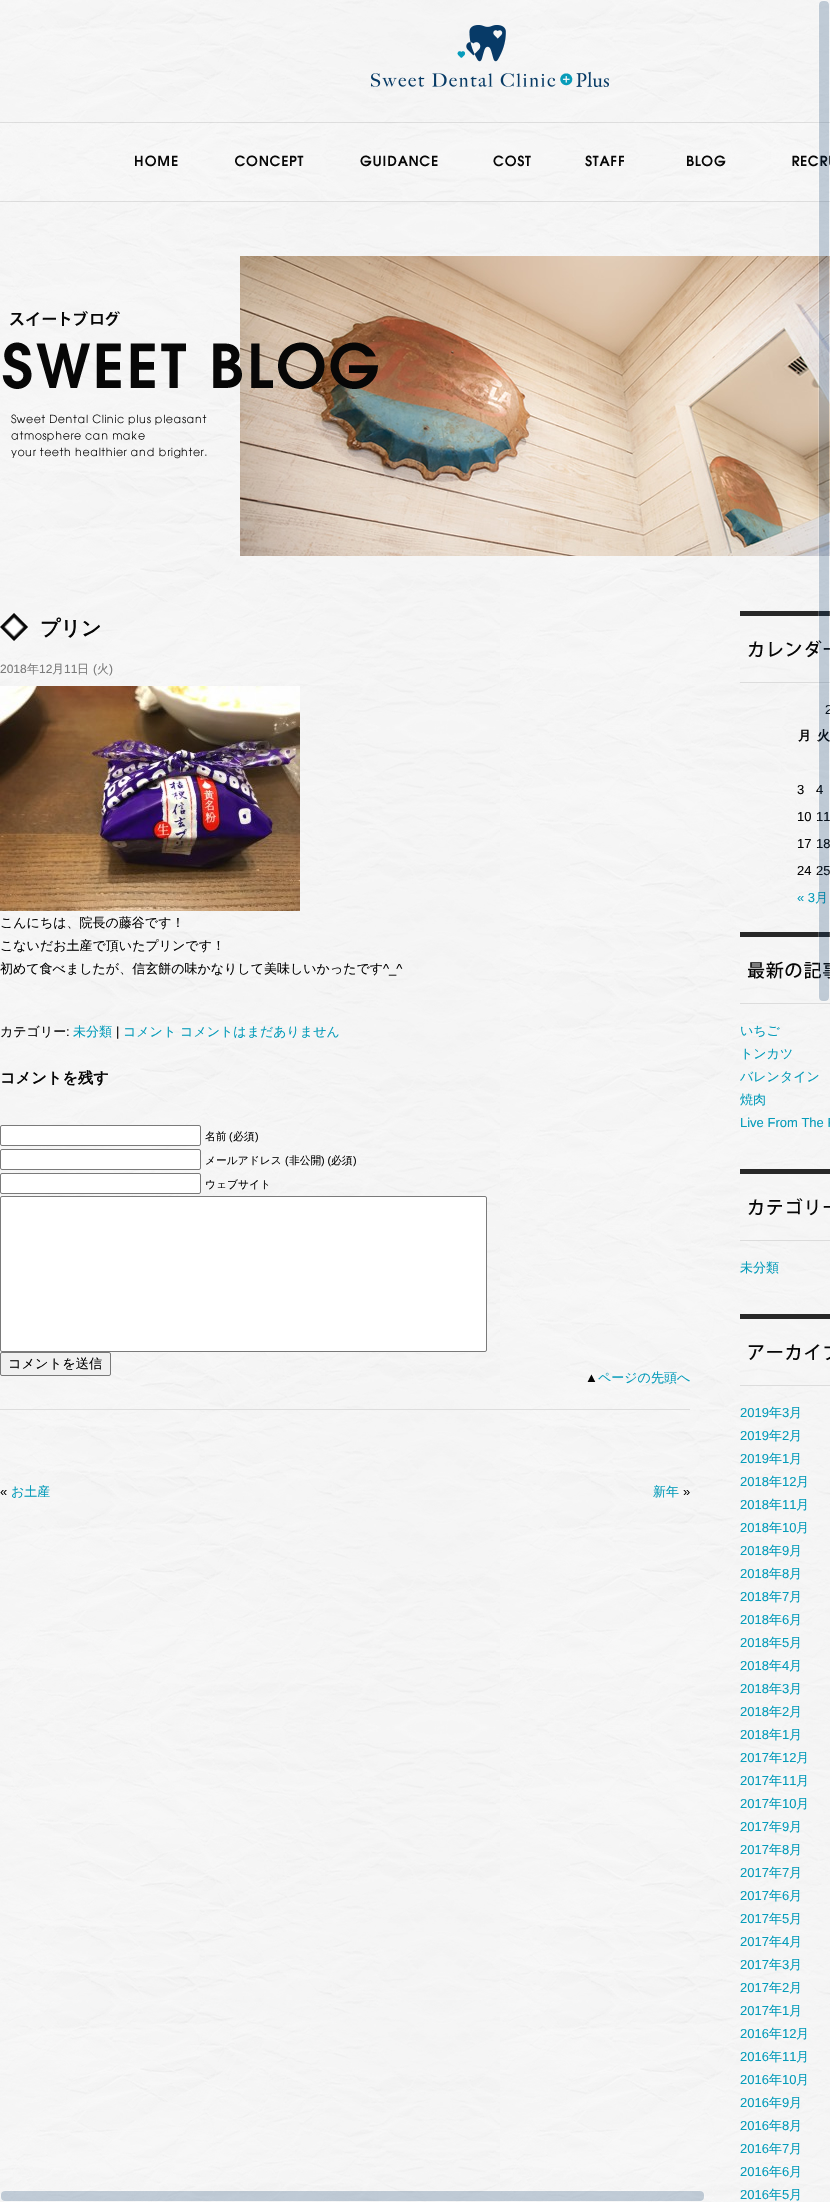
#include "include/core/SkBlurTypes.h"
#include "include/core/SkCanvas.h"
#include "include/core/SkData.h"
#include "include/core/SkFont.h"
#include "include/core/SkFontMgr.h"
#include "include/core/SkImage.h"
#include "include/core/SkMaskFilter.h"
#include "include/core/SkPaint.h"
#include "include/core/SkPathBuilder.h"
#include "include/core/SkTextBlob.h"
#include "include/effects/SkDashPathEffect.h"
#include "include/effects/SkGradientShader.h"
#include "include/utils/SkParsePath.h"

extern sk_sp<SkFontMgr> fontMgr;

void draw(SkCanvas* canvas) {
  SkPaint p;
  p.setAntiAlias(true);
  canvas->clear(SK_ColorWHITE);
  canvas->drawImageRect(SkImages::DeferredFromEncodedData(SkData::MakeFromFileName("images/1.png")), SkRect::MakeLTRB(0, 0, 830, 2202), SkSamplingOptions());
  canvas->drawImageRect(SkImages::DeferredFromEncodedData(SkData::MakeFromFileName("images/2.png")), SkRect::MakeLTRB(371, 25, 609, 87), SkSamplingOptions());
  canvas->drawImageRect(SkImages::DeferredFromEncodedData(SkData::MakeFromFileName("images/3.png")), SkRect::MakeLTRB(0, 122, 830, 202), SkSamplingOptions());
  canvas->drawImageRect(SkImages::DeferredFromEncodedData(SkData::MakeFromFileName("images/4.png")), SkRect::MakeLTRB(135, 155, 178, 167), SkSamplingOptions());
  canvas->drawImageRect(SkImages::DeferredFromEncodedData(SkData::MakeFromFileName("images/5.png")), SkRect::MakeLTRB(235, 155, 304, 167), SkSamplingOptions());
  canvas->drawImageRect(SkImages::DeferredFromEncodedData(SkData::MakeFromFileName("images/6.png")), SkRect::MakeLTRB(360, 155, 438, 167), SkSamplingOptions());
  canvas->drawImageRect(SkImages::DeferredFromEncodedData(SkData::MakeFromFileName("images/7.png")), SkRect::MakeLTRB(493, 155, 531, 167), SkSamplingOptions());
  canvas->drawImageRect(SkImages::DeferredFromEncodedData(SkData::MakeFromFileName("images/8.png")), SkRect::MakeLTRB(585, 155, 624, 167), SkSamplingOptions());
  canvas->drawImageRect(SkImages::DeferredFromEncodedData(SkData::MakeFromFileName("images/9.png")), SkRect::MakeLTRB(687, 155, 726, 167), SkSamplingOptions());
  canvas->drawImageRect(SkImages::DeferredFromEncodedData(SkData::MakeFromFileName("images/10.png")), SkRect::MakeLTRB(792, 155, 830, 167), SkSamplingOptions());
  canvas->drawImageRect(SkImages::DeferredFromEncodedData(SkData::MakeFromFileName("images/11.png")), SkRect::MakeLTRB(2, 256, 830, 556), SkSamplingOptions());
  canvas->drawImageRect(SkImages::DeferredFromEncodedData(SkData::MakeFromFileName("images/12.png")), SkRect::MakeLTRB(0, 613, 28, 641), SkSamplingOptions());
  canvas->drawImageRect(SkImages::DeferredFromEncodedData(SkData::MakeFromFileName("images/13.png")), SkRect::MakeLTRB(0, 686, 300, 911), SkSamplingOptions());
  p.setColor(SkColorSetARGB(247, 255, 255, 255));
  canvas->drawRoundRect(SkRect::MakeLTRB(0.5f, 1125.5f, 200.5f, 1145.5f), 1.5f, 1.5f, p);
  p.setStyle(SkPaint::kStroke_Style);
  p.setStrokeWidth(1);
  p.setColor(SkColorSetRGB(122, 122, 122));
  canvas->drawRoundRect(SkRect::MakeLTRB(0.5f, 1125.5f, 200.5f, 1145.5f), 1.5f, 1.5f, p);
  p.setStyle(SkPaint::kFill_Style);
  p.setColor(SkColorSetARGB(247, 255, 255, 255));
  canvas->drawRoundRect(SkRect::MakeLTRB(0.5f, 1149.5f, 200.5f, 1169.5f), 1.5f, 1.5f, p);
  p.setStyle(SkPaint::kStroke_Style);
  p.setColor(SkColorSetRGB(122, 122, 122));
  canvas->drawRoundRect(SkRect::MakeLTRB(0.5f, 1149.5f, 200.5f, 1169.5f), 1.5f, 1.5f, p);
  p.setStyle(SkPaint::kFill_Style);
  p.setColor(SkColorSetARGB(247, 255, 255, 255));
  canvas->drawRoundRect(SkRect::MakeLTRB(0.5f, 1173.5f, 200.5f, 1193.5f), 1.5f, 1.5f, p);
  p.setStyle(SkPaint::kStroke_Style);
  p.setColor(SkColorSetRGB(122, 122, 122));
  canvas->drawRoundRect(SkRect::MakeLTRB(0.5f, 1173.5f, 200.5f, 1193.5f), 1.5f, 1.5f, p);
  p.setStyle(SkPaint::kFill_Style);
  p.setColor(SkColorSetARGB(247, 255, 255, 255));
  canvas->drawRoundRect(SkRect::MakeLTRB(0.5f, 1196.5f, 486.5f, 1351.5f), 1.5f, 1.5f, p);
  p.setStyle(SkPaint::kStroke_Style);
  p.setColor(SkColorSetRGB(122, 122, 122));
  canvas->drawRoundRect(SkRect::MakeLTRB(0.5f, 1196.5f, 486.5f, 1351.5f), 1.5f, 1.5f, p);
  p.setStyle(SkPaint::kFill_Style);
  p.setColor(SkColorSetARGB(247, 239, 239, 239));
  canvas->drawRoundRect(SkRect::MakeLTRB(0.5f, 1352.5f, 110.5f, 1375.5f), 1.5f, 1.5f, p);
  p.setStyle(SkPaint::kStroke_Style);
  p.setColor(SkColorSetRGB(121, 121, 121));
  canvas->drawRoundRect(SkRect::MakeLTRB(0.5f, 1352.5f, 110.5f, 1375.5f), 1.5f, 1.5f, p);
  p.setStyle(SkPaint::kFill_Style);
  p.setColor(SkColorSetARGB(247, 220, 220, 220));
  canvas->drawRect(SkRect::MakeLTRB(0, 1409, 690, 1410), p);
  canvas->drawImageRect(SkImages::DeferredFromEncodedData(SkData::MakeFromFileName("images/14.png")), SkRect::MakeLTRB(740, 611, 830, 683), SkSamplingOptions());
  canvas->drawImageRect(SkImages::DeferredFromEncodedData(SkData::MakeFromFileName("images/15.png")), SkRect::MakeLTRB(740, 932, 830, 1004), SkSamplingOptions());
  canvas->drawImageRect(SkImages::DeferredFromEncodedData(SkData::MakeFromFileName("images/16.png")), SkRect::MakeLTRB(740, 1169, 830, 1241), SkSamplingOptions());
  canvas->drawImageRect(SkImages::DeferredFromEncodedData(SkData::MakeFromFileName("images/17.png")), SkRect::MakeLTRB(740, 1314, 830, 1386), SkSamplingOptions());
  p.setColor(SkColorSetARGB(56, 0, 52, 99));
  canvas->drawRoundRect(SkRect::MakeLTRB(1, 2191, 704, 2201), 4, 4, p);
  p.setStyle(SkPaint::kStroke_Style);
  p.setColor(SkColorSetARGB(56, 255, 255, 255));
  canvas->drawRoundRect(SkRect::MakeLTRB(0.5f, 2190.5f, 704.5f, 2201.5f), 4.5f, 4.5f, p);
  SkFont font1(fontMgr->matchFamilyStyle("WenQuanYi Zen Hei", SkFontStyle::Bold()), 20);
  font1.setSubpixel(true);
  p.setStyle(SkPaint::kFill_Style);
  p.setColor(SkColorSetRGB(6, 6, 6));
  canvas->drawString("プリン", 40, 635, font1, p);
  SkFont font2(fontMgr->matchFamilyStyle("Liberation Sans", SkFontStyle::Normal()), 12);
  font2.setSubpixel(true);
  p.setColor(SkColorSetRGB(122, 122, 122));
  canvas->drawString("2018", 0, 673, font2, p);
  SkFont font3(fontMgr->matchFamilyStyle("WenQuanYi Zen Hei", SkFontStyle(500, SkFontStyle::kNormal_Width, SkFontStyle::kUpright_Slant)), 12);
  font3.setSubpixel(true);
  canvas->drawString("年", 27, 673, font3, p);
  canvas->drawString("12", 39, 673, font2, p);
  canvas->drawString("月", 52, 673, font3, p);
  canvas->drawString("11", 64, 673, font2, p);
  canvas->drawString("日", 77, 673, font3, p);
  canvas->drawString("(", 93, 673, font2, p);
  canvas->drawString("火", 97, 673, font3, p);
  canvas->drawString(")", 109, 673, font2, p);
  SkFont font4(fontMgr->matchFamilyStyle("WenQuanYi Zen Hei", SkFontStyle(500, SkFontStyle::kNormal_Width, SkFontStyle::kUpright_Slant)), 13);
  font4.setSubpixel(true);
  p.setColor(SkColorSetRGB(6, 6, 6));
  canvas->drawString("こんにちは、院長の藤谷です！", 0, 927, font4, p);
  canvas->drawString("こないだお土産で頂いたプリンです！", 0, 950, font4, p);
  canvas->drawString("初めて食べましたが、信玄餅の味かなりして美味しいかったです", 0, 973, font4, p);
  SkFont font5(fontMgr->matchFamilyStyle("Liberation Sans", SkFontStyle::Normal()), 13);
  font5.setSubpixel(true);
  canvas->drawString("^_^", 383, 973, font5, p);
  canvas->drawString("カテゴリー", 0, 1036, font4, p);
  canvas->drawString(":", 66, 1036, font5, p);
  p.setColor(SkColorSetRGB(6, 156, 186));
  canvas->drawString("未分類", 73, 1036, font4, p);
  p.setColor(SkColorSetRGB(6, 6, 6));
  canvas->drawString("|", 116, 1036, font5, p);
  p.setColor(SkColorSetRGB(6, 156, 186));
  canvas->drawString("コメント コメントはまだありません", 123, 1036, font4, p);
  SkFont font6(fontMgr->matchFamilyStyle("WenQuanYi Zen Hei", SkFontStyle::Bold()), 15.25f);
  font6.setSubpixel(true);
  p.setColor(SkColorSetRGB(6, 6, 6));
  canvas->drawString("コメントを残す", 0, 1083, font6, p);
  SkFont font7(fontMgr->matchFamilyStyle("WenQuanYi Zen Hei", SkFontStyle(500, SkFontStyle::kNormal_Width, SkFontStyle::kUpright_Slant)), 10.75f);
  font7.setSubpixel(true);
  canvas->drawString("名前", 205, 1140, font7, p);
  SkFont font8(fontMgr->matchFamilyStyle("Liberation Sans", SkFontStyle::Normal()), 10.75f);
  font8.setSubpixel(true);
  canvas->drawString("(", 229, 1140, font8, p);
  canvas->drawString("必須", 233, 1140, font7, p);
  canvas->drawString(")", 255, 1140, font8, p);
  canvas->drawString("メールアドレス", 205, 1164, font7, p);
  canvas->drawString("(", 285, 1164, font8, p);
  canvas->drawString("非公開", 289, 1164, font7, p);
  canvas->drawString(") (", 321, 1164, font8, p);
  canvas->drawString("必須", 331, 1164, font7, p);
  canvas->drawString(")", 353, 1164, font8, p);
  canvas->drawString("ウェブサイト", 205, 1188, font7, p);
  SkFont font9(fontMgr->matchFamilyStyle("WenQuanYi Zen Hei", SkFontStyle(500, SkFontStyle::kNormal_Width, SkFontStyle::kUpright_Slant)), 13.25f);
  font9.setSubpixel(true);
  canvas->drawString("コメントを送信", 8, 1368, font9, p);
  canvas->drawString("▲", 585, 1382, font5, p);
  p.setColor(SkColorSetRGB(6, 156, 186));
  canvas->drawString("ページの先頭へ", 598, 1382, font4, p);
  p.setColor(SkColorSetRGB(6, 6, 6));
  canvas->drawString("«", 0, 1496, font5, p);
  p.setColor(SkColorSetRGB(6, 156, 186));
  canvas->drawString("お土産", 11, 1496, font4, p);
  canvas->drawString("新年", 653, 1496, font4, p);
  p.setColor(SkColorSetRGB(6, 6, 6));
  canvas->drawString("»", 683, 1496, font5, p);
  canvas->drawString("2", 825, 714, font5, p);
  SkFont font10(fontMgr->matchFamilyStyle("WenQuanYi Zen Hei", SkFontStyle::Bold()), 13);
  font10.setSubpixel(true);
  canvas->drawString("月", 798, 740, font10, p);
  canvas->drawString("火", 817, 740, font10, p);
  canvas->drawString("3", 797, 794, font5, p);
  canvas->drawString("4", 816, 794, font5, p);
  canvas->drawString("10", 797, 821, font5, p);
  canvas->drawString("11", 816, 821, font5, p);
  canvas->drawString("17", 797, 848, font5, p);
  canvas->drawString("18", 816, 848, font5, p);
  canvas->drawString("24", 797, 875, font5, p);
  canvas->drawString("25", 816, 875, font5, p);
  p.setColor(SkColorSetRGB(6, 156, 186));
  canvas->drawString("« 3", 797, 902, font5, p);
  canvas->drawString("月", 815, 902, font4, p);
  p.setColor(SkColorSetARGB(56, 0, 52, 99));
  canvas->drawRoundRect(SkRect::MakeLTRB(819, 1, 829, 1001), 4, 4, p);
  p.setStyle(SkPaint::kStroke_Style);
  p.setColor(SkColorSetARGB(56, 255, 255, 255));
  canvas->drawRoundRect(SkRect::MakeLTRB(818.5f, 0.5f, 829.5f, 1001.5f), 4.5f, 4.5f, p);
  p.setStyle(SkPaint::kFill_Style);
  p.setColor(SkColorSetRGB(6, 156, 186));
  canvas->drawString("いちご", 740, 1035, font4, p);
  canvas->drawString("トンカツ", 740, 1058, font4, p);
  canvas->drawString("バレンタイン", 740, 1081, font4, p);
  canvas->drawString("焼肉", 740, 1104, font4, p);
  canvas->drawString("Live From The F", 740, 1127, font5, p);
  canvas->drawString("未分類", 740, 1272, font4, p);
  canvas->drawString("2019", 740, 1417, font5, p);
  canvas->drawString("年", 769, 1417, font4, p);
  canvas->drawString("3", 782, 1417, font5, p);
  canvas->drawString("月", 789, 1417, font4, p);
  canvas->drawString("2019", 740, 1440, font5, p);
  canvas->drawString("年", 769, 1440, font4, p);
  canvas->drawString("2", 782, 1440, font5, p);
  canvas->drawString("月", 789, 1440, font4, p);
  canvas->drawString("2019", 740, 1463, font5, p);
  canvas->drawString("年", 769, 1463, font4, p);
  canvas->drawString("1", 782, 1463, font5, p);
  canvas->drawString("月", 789, 1463, font4, p);
  canvas->drawString("2018", 740, 1486, font5, p);
  canvas->drawString("年", 769, 1486, font4, p);
  canvas->drawString("12", 782, 1486, font5, p);
  canvas->drawString("月", 796, 1486, font4, p);
  canvas->drawString("2018", 740, 1509, font5, p);
  canvas->drawString("年", 769, 1509, font4, p);
  canvas->drawString("11", 782, 1509, font5, p);
  canvas->drawString("月", 796, 1509, font4, p);
  canvas->drawString("2018", 740, 1532, font5, p);
  canvas->drawString("年", 769, 1532, font4, p);
  canvas->drawString("10", 782, 1532, font5, p);
  canvas->drawString("月", 796, 1532, font4, p);
  canvas->drawString("2018", 740, 1555, font5, p);
  canvas->drawString("年", 769, 1555, font4, p);
  canvas->drawString("9", 782, 1555, font5, p);
  canvas->drawString("月", 789, 1555, font4, p);
  canvas->drawString("2018", 740, 1578, font5, p);
  canvas->drawString("年", 769, 1578, font4, p);
  canvas->drawString("8", 782, 1578, font5, p);
  canvas->drawString("月", 789, 1578, font4, p);
  canvas->drawString("2018", 740, 1601, font5, p);
  canvas->drawString("年", 769, 1601, font4, p);
  canvas->drawString("7", 782, 1601, font5, p);
  canvas->drawString("月", 789, 1601, font4, p);
  canvas->drawString("2018", 740, 1624, font5, p);
  canvas->drawString("年", 769, 1624, font4, p);
  canvas->drawString("6", 782, 1624, font5, p);
  canvas->drawString("月", 789, 1624, font4, p);
  canvas->drawString("2018", 740, 1647, font5, p);
  canvas->drawString("年", 769, 1647, font4, p);
  canvas->drawString("5", 782, 1647, font5, p);
  canvas->drawString("月", 789, 1647, font4, p);
  canvas->drawString("2018", 740, 1670, font5, p);
  canvas->drawString("年", 769, 1670, font4, p);
  canvas->drawString("4", 782, 1670, font5, p);
  canvas->drawString("月", 789, 1670, font4, p);
  canvas->drawString("2018", 740, 1693, font5, p);
  canvas->drawString("年", 769, 1693, font4, p);
  canvas->drawString("3", 782, 1693, font5, p);
  canvas->drawString("月", 789, 1693, font4, p);
  canvas->drawString("2018", 740, 1716, font5, p);
  canvas->drawString("年", 769, 1716, font4, p);
  canvas->drawString("2", 782, 1716, font5, p);
  canvas->drawString("月", 789, 1716, font4, p);
  canvas->drawString("2018", 740, 1739, font5, p);
  canvas->drawString("年", 769, 1739, font4, p);
  canvas->drawString("1", 782, 1739, font5, p);
  canvas->drawString("月", 789, 1739, font4, p);
  canvas->drawString("2017", 740, 1762, font5, p);
  canvas->drawString("年", 769, 1762, font4, p);
  canvas->drawString("12", 782, 1762, font5, p);
  canvas->drawString("月", 796, 1762, font4, p);
  canvas->drawString("2017", 740, 1785, font5, p);
  canvas->drawString("年", 769, 1785, font4, p);
  canvas->drawString("11", 782, 1785, font5, p);
  canvas->drawString("月", 796, 1785, font4, p);
  canvas->drawString("2017", 740, 1808, font5, p);
  canvas->drawString("年", 769, 1808, font4, p);
  canvas->drawString("10", 782, 1808, font5, p);
  canvas->drawString("月", 796, 1808, font4, p);
  canvas->drawString("2017", 740, 1831, font5, p);
  canvas->drawString("年", 769, 1831, font4, p);
  canvas->drawString("9", 782, 1831, font5, p);
  canvas->drawString("月", 789, 1831, font4, p);
  canvas->drawString("2017", 740, 1854, font5, p);
  canvas->drawString("年", 769, 1854, font4, p);
  canvas->drawString("8", 782, 1854, font5, p);
  canvas->drawString("月", 789, 1854, font4, p);
  canvas->drawString("2017", 740, 1877, font5, p);
  canvas->drawString("年", 769, 1877, font4, p);
  canvas->drawString("7", 782, 1877, font5, p);
  canvas->drawString("月", 789, 1877, font4, p);
  canvas->drawString("2017", 740, 1900, font5, p);
  canvas->drawString("年", 769, 1900, font4, p);
  canvas->drawString("6", 782, 1900, font5, p);
  canvas->drawString("月", 789, 1900, font4, p);
  canvas->drawString("2017", 740, 1923, font5, p);
  canvas->drawString("年", 769, 1923, font4, p);
  canvas->drawString("5", 782, 1923, font5, p);
  canvas->drawString("月", 789, 1923, font4, p);
  canvas->drawString("2017", 740, 1946, font5, p);
  canvas->drawString("年", 769, 1946, font4, p);
  canvas->drawString("4", 782, 1946, font5, p);
  canvas->drawString("月", 789, 1946, font4, p);
  canvas->drawString("2017", 740, 1969, font5, p);
  canvas->drawString("年", 769, 1969, font4, p);
  canvas->drawString("3", 782, 1969, font5, p);
  canvas->drawString("月", 789, 1969, font4, p);
  canvas->drawString("2017", 740, 1992, font5, p);
  canvas->drawString("年", 769, 1992, font4, p);
  canvas->drawString("2", 782, 1992, font5, p);
  canvas->drawString("月", 789, 1992, font4, p);
  canvas->drawString("2017", 740, 2015, font5, p);
  canvas->drawString("年", 769, 2015, font4, p);
  canvas->drawString("1", 782, 2015, font5, p);
  canvas->drawString("月", 789, 2015, font4, p);
  canvas->drawString("2016", 740, 2038, font5, p);
  canvas->drawString("年", 769, 2038, font4, p);
  canvas->drawString("12", 782, 2038, font5, p);
  canvas->drawString("月", 796, 2038, font4, p);
  canvas->drawString("2016", 740, 2061, font5, p);
  canvas->drawString("年", 769, 2061, font4, p);
  canvas->drawString("11", 782, 2061, font5, p);
  canvas->drawString("月", 796, 2061, font4, p);
  canvas->drawString("2016", 740, 2084, font5, p);
  canvas->drawString("年", 769, 2084, font4, p);
  canvas->drawString("10", 782, 2084, font5, p);
  canvas->drawString("月", 796, 2084, font4, p);
  canvas->drawString("2016", 740, 2107, font5, p);
  canvas->drawString("年", 769, 2107, font4, p);
  canvas->drawString("9", 782, 2107, font5, p);
  canvas->drawString("月", 789, 2107, font4, p);
  canvas->drawString("2016", 740, 2130, font5, p);
  canvas->drawString("年", 769, 2130, font4, p);
  canvas->drawString("8", 782, 2130, font5, p);
  canvas->drawString("月", 789, 2130, font4, p);
  canvas->drawString("2016", 740, 2153, font5, p);
  canvas->drawString("年", 769, 2153, font4, p);
  canvas->drawString("7", 782, 2153, font5, p);
  canvas->drawString("月", 789, 2153, font4, p);
  canvas->drawString("2016", 740, 2176, font5, p);
  canvas->drawString("年", 769, 2176, font4, p);
  canvas->drawString("6", 782, 2176, font5, p);
  canvas->drawString("月", 789, 2176, font4, p);
  canvas->drawString("2016", 740, 2199, font5, p);
  canvas->drawString("年", 769, 2199, font4, p);
  canvas->drawString("5", 782, 2199, font5, p);
  canvas->drawString("月", 789, 2199, font4, p);
}
